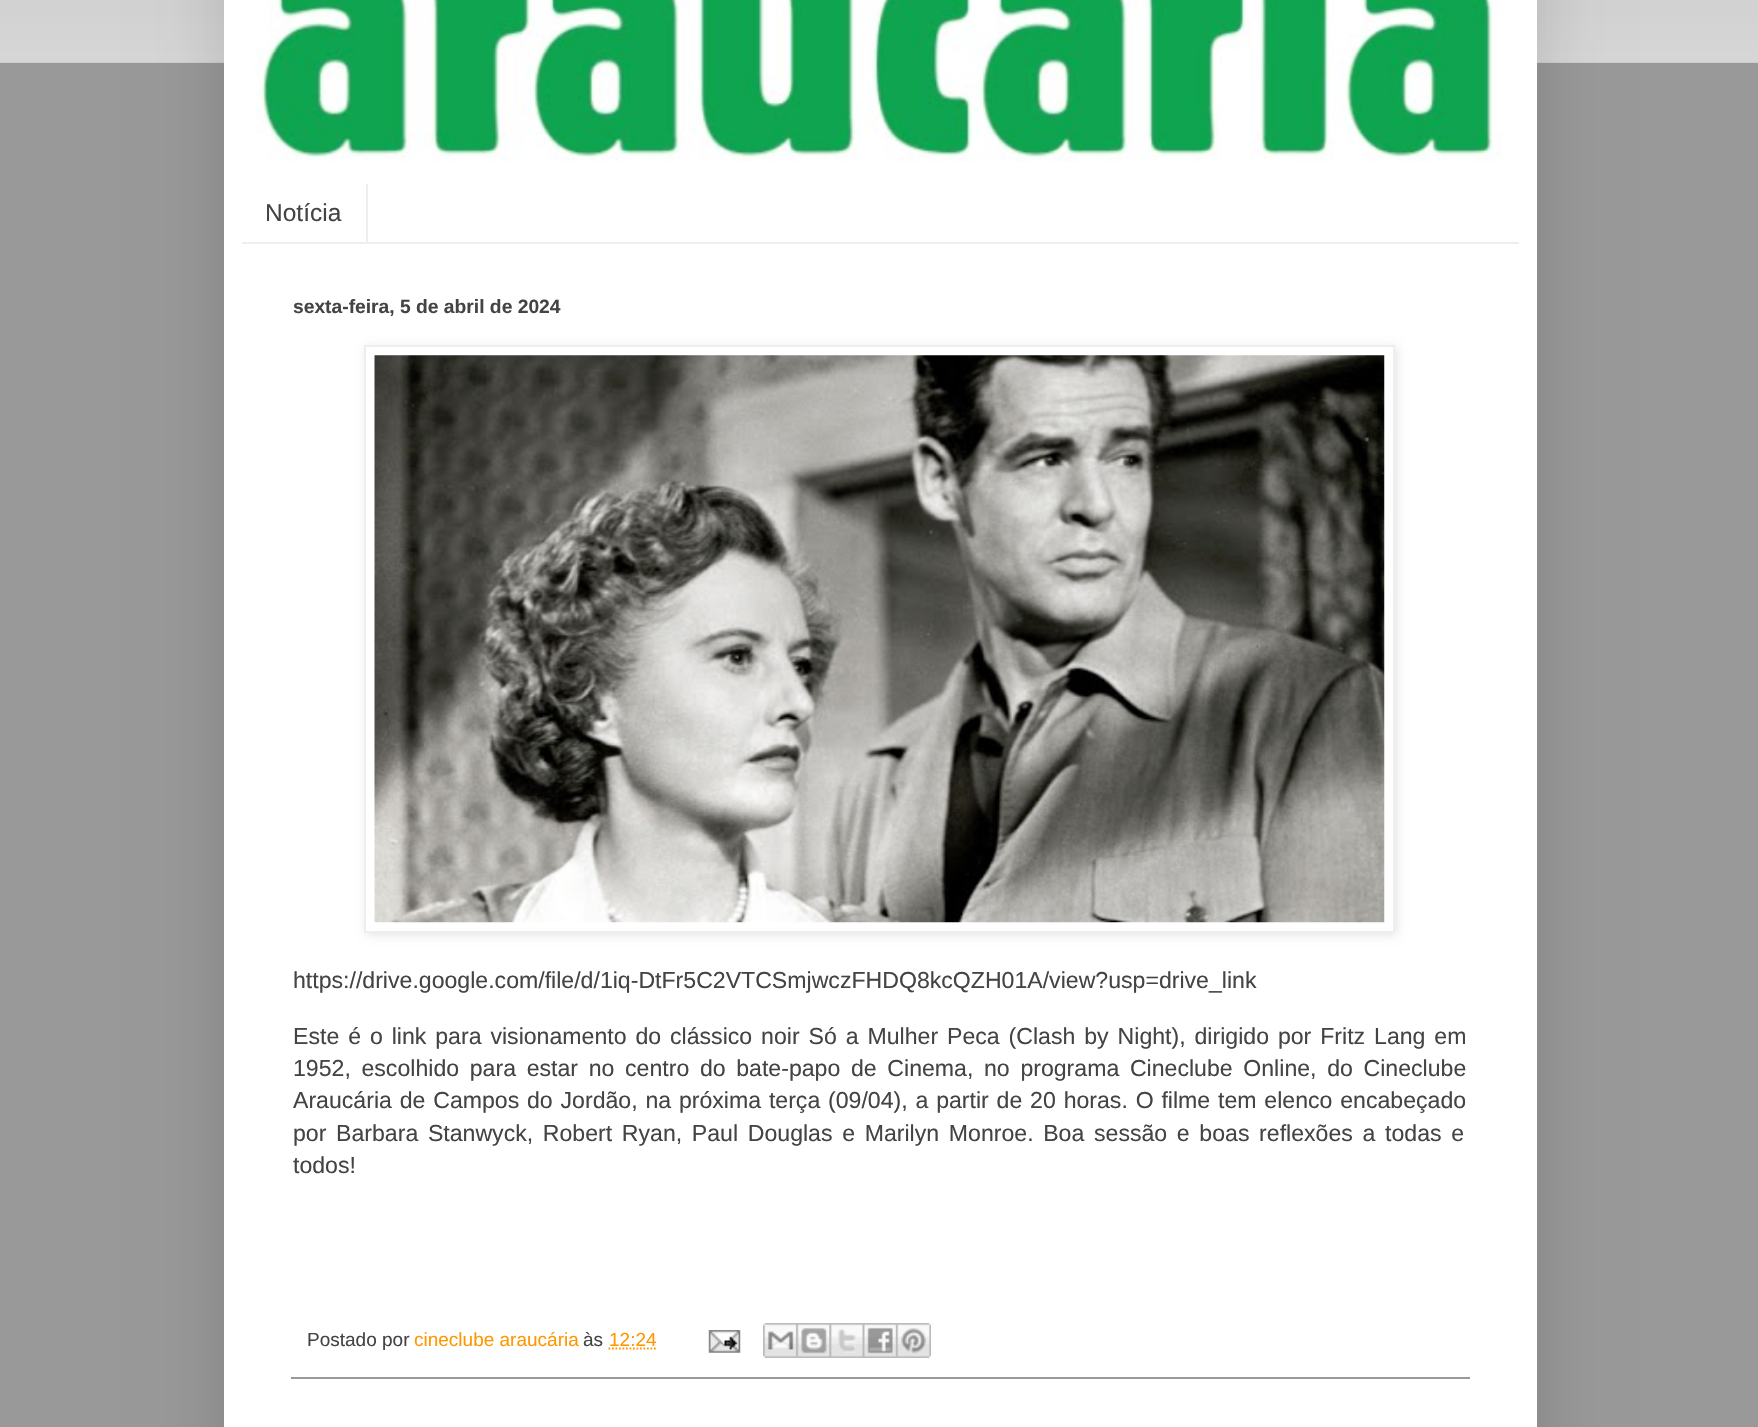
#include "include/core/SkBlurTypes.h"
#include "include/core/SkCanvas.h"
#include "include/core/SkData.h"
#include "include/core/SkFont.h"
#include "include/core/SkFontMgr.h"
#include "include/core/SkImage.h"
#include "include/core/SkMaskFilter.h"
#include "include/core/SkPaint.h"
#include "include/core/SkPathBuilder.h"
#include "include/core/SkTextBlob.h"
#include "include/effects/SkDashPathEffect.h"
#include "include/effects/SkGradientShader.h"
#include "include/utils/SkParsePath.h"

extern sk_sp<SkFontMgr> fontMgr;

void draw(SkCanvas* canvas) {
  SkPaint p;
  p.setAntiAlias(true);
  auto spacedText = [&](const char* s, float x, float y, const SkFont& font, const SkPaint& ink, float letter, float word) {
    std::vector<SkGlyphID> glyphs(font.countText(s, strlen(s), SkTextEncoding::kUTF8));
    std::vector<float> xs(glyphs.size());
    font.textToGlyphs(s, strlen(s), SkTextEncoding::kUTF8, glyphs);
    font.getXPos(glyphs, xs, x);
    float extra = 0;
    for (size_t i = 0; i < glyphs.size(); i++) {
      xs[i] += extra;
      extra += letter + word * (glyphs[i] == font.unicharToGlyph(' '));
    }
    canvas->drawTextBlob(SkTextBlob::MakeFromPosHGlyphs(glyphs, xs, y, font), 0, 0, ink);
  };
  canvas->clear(SkColorSetRGB(153, 153, 153));
  canvas->drawImageRect(SkImages::DeferredFromEncodedData(SkData::MakeFromFileName("images/1.png")), SkRect::MakeLTRB(0, 0, 1758, 63), SkSamplingOptions());
  p.setColor(SkColorSetARGB(38, 0, 0, 0));
  p.setMaskFilter(SkMaskFilter::MakeBlur(kNormal_SkBlurStyle, 35));
  canvas->drawRect(SkRect::MakeLTRB(224, -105, 1537, 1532), p);
  p.setMaskFilter(nullptr);
  p.setColor(SK_ColorWHITE);
  canvas->drawRect(SkRect::MakeLTRB(224, 0, 1537, 1427), p);
  canvas->drawImageRect(SkImages::DeferredFromEncodedData(SkData::MakeFromFileName("images/2.png")), SkRect::MakeLTRB(255, 0, 1502, 162), SkSamplingOptions());
  p.setColor(SkColorSetRGB(238, 238, 238));
  canvas->drawRect(SkRect::MakeLTRB(242, 242, 1519, 244), p);
  canvas->drawRect(SkRect::MakeLTRB(366, 184, 368, 242), p);
  p.setColor(SkColorSetARGB(26, 0, 0, 0));
  p.setMaskFilter(SkMaskFilter::MakeBlur(kNormal_SkBlurStyle, 4.5f));
  canvas->drawRect(SkRect::MakeLTRB(366, 347, 1397, 935), p);
  p.setMaskFilter(nullptr);
  p.setColor(SK_ColorWHITE);
  canvas->drawRect(SkRect::MakeLTRB(365, 346, 1394, 932), p);
  p.setStyle(SkPaint::kStroke_Style);
  p.setStrokeWidth(2);
  p.setColor(SkColorSetRGB(238, 238, 238));
  canvas->drawRect(SkRect::MakeLTRB(365, 346, 1394, 932), p);
  canvas->drawImageRect(SkImages::DeferredFromEncodedData(SkData::MakeFromFileName("images/3.png")), SkRect::MakeLTRB(374, 355, 1385, 923), SkSamplingOptions());
  p.setStyle(SkPaint::kFill_Style);
  p.setColor(SkColorSetRGB(153, 153, 153));
  canvas->drawRect(SkRect::MakeLTRB(291, 1377, 1470, 1379), p);
  p.setStyle(SkPaint::kStroke_Style);
  p.setStrokeWidth(1.8f);
  p.setColor(SkColorSetRGB(255, 151, 0));
  p.setPathEffect(SkDashPathEffect::Make({{1.75f, 1.75f}}, 0));
  canvas->drawPath(SkPathBuilder().moveTo(608.5f, 1348.5f).lineTo(656, 1348.5f).detach(), p);
  p.setPathEffect(nullptr);
  canvas->drawImageRect(SkImages::DeferredFromEncodedData(SkData::MakeFromFileName("images/4.png")), SkRect::MakeLTRB(708, 1330, 741, 1353), SkSamplingOptions());
  canvas->drawImageRect(SkImages::DeferredFromEncodedData(SkData::MakeFromFileName("images/5.png")), SkRect::MakeLTRB(763, 1323, 797, 1358), SkSamplingOptions());
  canvas->drawImageRect(SkImages::DeferredFromEncodedData(SkData::MakeFromFileName("images/6.png")), SkRect::MakeLTRB(796, 1323, 830, 1358), SkSamplingOptions());
  canvas->drawImageRect(SkImages::DeferredFromEncodedData(SkData::MakeFromFileName("images/7.png")), SkRect::MakeLTRB(829, 1323, 863, 1358), SkSamplingOptions());
  canvas->drawImageRect(SkImages::DeferredFromEncodedData(SkData::MakeFromFileName("images/8.png")), SkRect::MakeLTRB(862, 1323, 896, 1358), SkSamplingOptions());
  canvas->drawImageRect(SkImages::DeferredFromEncodedData(SkData::MakeFromFileName("images/9.png")), SkRect::MakeLTRB(896, 1323, 931, 1358), SkSamplingOptions());
  SkFont font1(fontMgr->matchFamilyStyle("Liberation Sans", SkFontStyle::Normal()), 24.5f);
  font1.setSubpixel(true);
  p.setStyle(SkPaint::kFill_Style);
  p.setColor(SkColorSetRGB(68, 68, 68));
  canvas->drawString("Notícia", 265, 221, font1, p);
  SkFont font2(fontMgr->matchFamilyStyle("Liberation Sans", SkFontStyle::Bold()), 19.25f);
  font2.setSubpixel(true);
  canvas->drawString("sexta-feira, 5 de abril de 2024", 293, 313, font2, p);
  SkFont font3(fontMgr->matchFamilyStyle("Liberation Sans", SkFontStyle::Normal()), 23.1f);
  font3.setSubpixel(true);
  canvas->drawString("https://drive.google.com/file/d/1iq-DtFr5C2VTCSmjwczFHDQ8kcQZH01A/view?usp=drive_link", 293, 988, font3, p);
  spacedText("Este é o link para visionamento do clássico noir Só a Mulher Peca (Clash by Night), dirigido por Fritz Lang em", 293, 1044, font3, p, 0, 2.5f);
  spacedText("1952, escolhido para estar no centro do bate-papo de Cinema, no programa Cineclube Online, do Cineclube", 293, 1076, font3, p, 0, 4.25f);
  spacedText("Araucária de Campos do Jordão, na próxima terça (09/04), a partir de 20 horas. O filme tem elenco encabeçado", 293, 1108, font3, p, 0, 1.4f);
  spacedText("por Barbara Stanwyck, Robert Ryan, Paul Douglas e Marilyn Monroe. Boa sessão e boas reflexões a todas e", 293, 1141, font3, p, 0, 3.25f);
  canvas->drawString("todos!", 293, 1173, font3, p);
  SkFont font4(fontMgr->matchFamilyStyle("Liberation Sans", SkFontStyle::Normal()), 19);
  font4.setSubpixel(true);
  canvas->drawString("Postado por", 307, 1346, font4, p);
  p.setColor(SkColorSetRGB(255, 151, 0));
  canvas->drawString("cineclube araucária", 414, 1346, font4, p);
  p.setColor(SkColorSetRGB(68, 68, 68));
  canvas->drawString("às", 583, 1346, font4, p);
  p.setColor(SkColorSetRGB(255, 151, 0));
  canvas->drawString("12:24", 609, 1346, font4, p);
}
